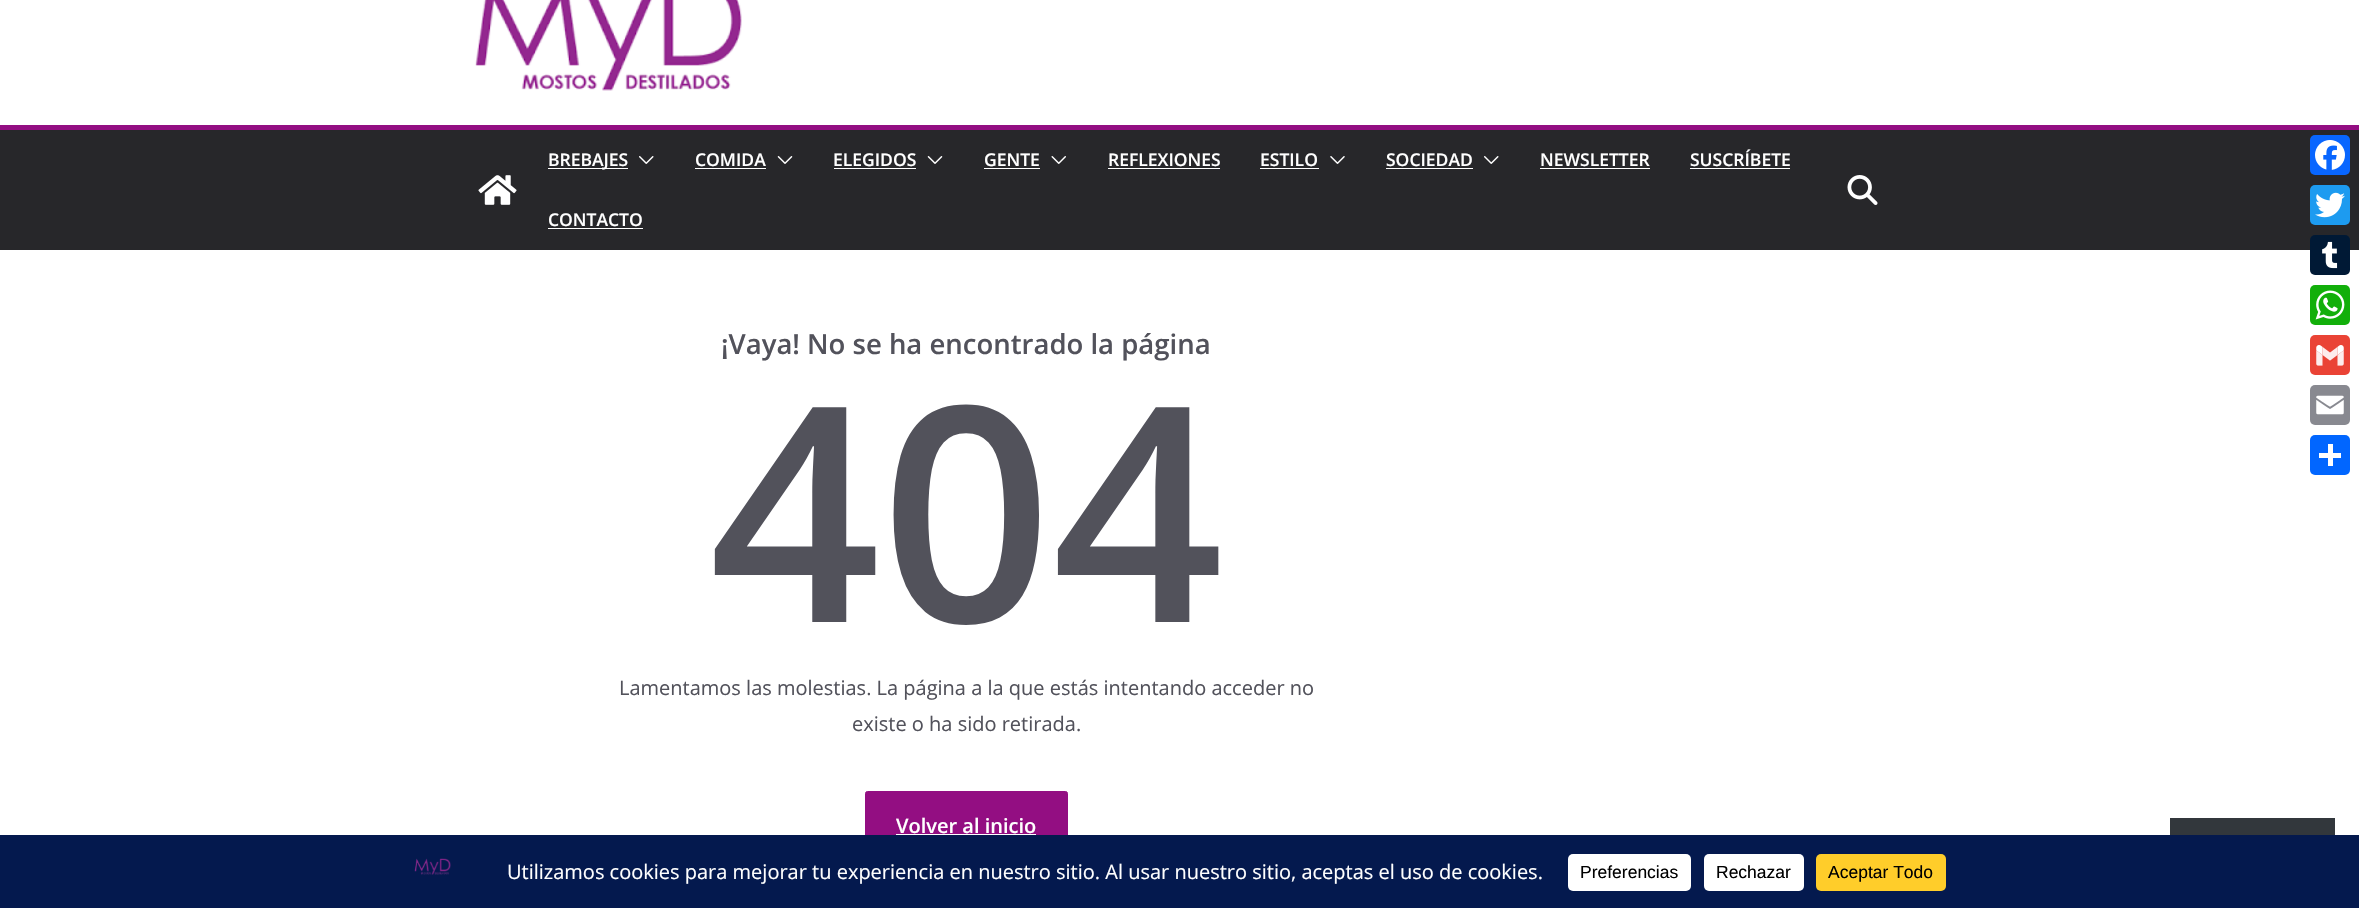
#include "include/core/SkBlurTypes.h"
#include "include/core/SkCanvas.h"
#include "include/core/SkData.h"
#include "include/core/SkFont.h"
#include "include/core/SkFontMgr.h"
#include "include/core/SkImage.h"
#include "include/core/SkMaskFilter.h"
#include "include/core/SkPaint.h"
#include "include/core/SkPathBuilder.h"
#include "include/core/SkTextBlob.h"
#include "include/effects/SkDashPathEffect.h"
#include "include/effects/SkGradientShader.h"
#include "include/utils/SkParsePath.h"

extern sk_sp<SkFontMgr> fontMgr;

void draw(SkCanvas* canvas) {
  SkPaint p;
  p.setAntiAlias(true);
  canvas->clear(SK_ColorWHITE);
  canvas->drawImageRect(SkImages::DeferredFromEncodedData(SkData::MakeFromFileName("images/1.png")), SkRect::MakeLTRB(475, 0, 742, 91), SkSamplingOptions());
  p.setColor(SkColorSetRGB(39, 39, 42));
  canvas->drawRect(SkRect::MakeLTRB(0, 130, 2359, 250), p);
  p.setColor(SkColorSetRGB(147, 14, 130));
  canvas->drawRect(SkRect::MakeLTRB(0, 125, 2359, 130), p);
  canvas->drawImageRect(SkImages::DeferredFromEncodedData(SkData::MakeFromFileName("images/2.png")), SkRect::MakeLTRB(478, 175, 517, 205), SkSamplingOptions());
  p.setColor(SK_ColorWHITE);
  canvas->drawRect(SkRect::MakeLTRB(548, 168, 628, 169), p);
  canvas->drawImageRect(SkImages::DeferredFromEncodedData(SkData::MakeFromFileName("images/3.png")), SkRect::MakeLTRB(639, 156, 654, 164), SkSamplingOptions());
  canvas->drawRect(SkRect::MakeLTRB(695, 168, 766, 169), p);
  canvas->drawImageRect(SkImages::DeferredFromEncodedData(SkData::MakeFromFileName("images/4.png")), SkRect::MakeLTRB(777, 156, 793, 164), SkSamplingOptions());
  canvas->drawRect(SkRect::MakeLTRB(834, 168, 916, 169), p);
  canvas->drawImageRect(SkImages::DeferredFromEncodedData(SkData::MakeFromFileName("images/4.png")), SkRect::MakeLTRB(927, 156, 943, 164), SkSamplingOptions());
  canvas->drawRect(SkRect::MakeLTRB(984, 168, 1040, 169), p);
  canvas->drawImageRect(SkImages::DeferredFromEncodedData(SkData::MakeFromFileName("images/5.png")), SkRect::MakeLTRB(1051, 156, 1066, 164), SkSamplingOptions());
  canvas->drawRect(SkRect::MakeLTRB(1108, 168, 1220, 169), p);
  canvas->drawRect(SkRect::MakeLTRB(1260, 168, 1319, 169), p);
  canvas->drawImageRect(SkImages::DeferredFromEncodedData(SkData::MakeFromFileName("images/6.png")), SkRect::MakeLTRB(1330, 156, 1345, 164), SkSamplingOptions());
  canvas->drawRect(SkRect::MakeLTRB(1386, 168, 1473, 169), p);
  canvas->drawImageRect(SkImages::DeferredFromEncodedData(SkData::MakeFromFileName("images/3.png")), SkRect::MakeLTRB(1484, 156, 1499, 164), SkSamplingOptions());
  canvas->drawRect(SkRect::MakeLTRB(1540, 168, 1650, 169), p);
  canvas->drawRect(SkRect::MakeLTRB(1690, 168, 1790, 169), p);
  canvas->drawRect(SkRect::MakeLTRB(548, 228, 643, 229), p);
  canvas->drawImageRect(SkImages::DeferredFromEncodedData(SkData::MakeFromFileName("images/7.png")), SkRect::MakeLTRB(1847, 175, 1878, 205), SkSamplingOptions());
  p.setColor(SkColorSetRGB(147, 14, 130));
  canvas->drawRoundRect(SkRect::MakeLTRB(865.5f, 791.5f, 1067.5f, 859.5f), 2, 2, p);
  p.setStyle(SkPaint::kStroke_Style);
  p.setStrokeWidth(1);
  canvas->drawRoundRect(SkRect::MakeLTRB(865.5f, 791.5f, 1067.5f, 859.5f), 2, 2, p);
  p.setStyle(SkPaint::kFill_Style);
  p.setColor(SK_ColorWHITE);
  canvas->drawRect(SkRect::MakeLTRB(896, 834, 1036, 835), p);
  p.setColor(SkColorSetRGB(8, 102, 255));
  canvas->drawRoundRect(SkRect::MakeLTRB(2310, 135, 2350, 175), 5, 5, p);
  canvas->drawImageRect(SkImages::DeferredFromEncodedData(SkData::MakeFromFileName("images/8.png")), SkRect::MakeLTRB(2315, 140, 2345, 170), SkSamplingOptions());
  p.setColor(SkColorSetRGB(29, 155, 240));
  canvas->drawRoundRect(SkRect::MakeLTRB(2310, 185, 2350, 225), 5, 5, p);
  canvas->drawImageRect(SkImages::DeferredFromEncodedData(SkData::MakeFromFileName("images/9.png")), SkRect::MakeLTRB(2315, 192, 2345, 218), SkSamplingOptions());
  p.setColor(SkColorSetRGB(0, 25, 53));
  canvas->drawRoundRect(SkRect::MakeLTRB(2310, 235, 2350, 275), 5, 5, p);
  canvas->drawImageRect(SkImages::DeferredFromEncodedData(SkData::MakeFromFileName("images/10.png")), SkRect::MakeLTRB(2322, 241, 2338, 269), SkSamplingOptions());
  p.setColor(SkColorSetRGB(18, 175, 10));
  canvas->drawRoundRect(SkRect::MakeLTRB(2310, 285, 2350, 325), 5, 5, p);
  canvas->drawImageRect(SkImages::DeferredFromEncodedData(SkData::MakeFromFileName("images/11.png")), SkRect::MakeLTRB(2315, 290, 2345, 320), SkSamplingOptions());
  p.setColor(SkColorSetRGB(234, 67, 53));
  canvas->drawRoundRect(SkRect::MakeLTRB(2310, 335, 2350, 375), 5, 5, p);
  canvas->drawImageRect(SkImages::DeferredFromEncodedData(SkData::MakeFromFileName("images/12.png")), SkRect::MakeLTRB(2316, 345, 2344, 366), SkSamplingOptions());
  p.setColor(SkColorSetRGB(136, 137, 144));
  canvas->drawRoundRect(SkRect::MakeLTRB(2310, 385, 2350, 425), 5, 5, p);
  canvas->drawImageRect(SkImages::DeferredFromEncodedData(SkData::MakeFromFileName("images/13.png")), SkRect::MakeLTRB(2316, 395, 2344, 415), SkSamplingOptions());
  p.setColor(SkColorSetRGB(1, 102, 255));
  canvas->drawRoundRect(SkRect::MakeLTRB(2310, 435, 2350, 475), 5, 5, p);
  p.setColor(SK_ColorWHITE);
  canvas->drawRect(SkRect::MakeLTRB(2328, 444, 2333, 466), p);
  canvas->drawRect(SkRect::MakeLTRB(2319, 453, 2341, 458), p);
  p.setColor(SkColorSetRGB(50, 55, 60));
  canvas->drawRect(SkRect::MakeLTRB(2170, 818, 2335, 835), p);
  p.setColor(SkColorSetRGB(4, 25, 78));
  canvas->drawRect(SkRect::MakeLTRB(0, 835, 2359, 908), p);
  canvas->drawImageRect(SkImages::DeferredFromEncodedData(SkData::MakeFromFileName("images/14.png")), SkRect::MakeLTRB(414, 858, 451, 875), SkSamplingOptions());
  p.setColor(SK_ColorWHITE);
  canvas->drawRoundRect(SkRect::MakeLTRB(1568, 854, 1691, 891), 5, 5, p);
  canvas->drawRoundRect(SkRect::MakeLTRB(1704, 854, 1804, 891), 5, 5, p);
  p.setColor(SkColorSetRGB(255, 205, 42));
  canvas->drawRoundRect(SkRect::MakeLTRB(1816, 854, 1946, 891), 5, 5, p);
  SkFont font1(fontMgr->matchFamilyStyle("Open Sans", SkFontStyle(600, SkFontStyle::kNormal_Width, SkFontStyle::kUpright_Slant)), 17.5f);
  font1.setSubpixel(true);
  p.setColor(SK_ColorWHITE);
  canvas->drawString("BREBAJES", 548, 166, font1, p);
  canvas->drawString("COMIDA", 695, 166, font1, p);
  canvas->drawString("ELEGIDOS", 833, 166, font1, p);
  canvas->drawString("GENTE", 984, 166, font1, p);
  canvas->drawString("REFLEXIONES", 1108, 166, font1, p);
  canvas->drawString("ESTILO", 1260, 166, font1, p);
  canvas->drawString("SOCIEDAD", 1386, 166, font1, p);
  canvas->drawString("NEWSLETTER", 1540, 166, font1, p);
  canvas->drawString("SUSCRÍBETE", 1690, 166, font1, p);
  canvas->drawString("CONTACTO", 548, 226, font1, p);
  SkFont font2(fontMgr->matchFamilyStyle("Open Sans", SkFontStyle(600, SkFontStyle::kNormal_Width, SkFontStyle::kUpright_Slant)), 27.5f);
  font2.setSubpixel(true);
  p.setColor(SkColorSetRGB(82, 82, 91));
  canvas->drawString("¡Vaya! No se ha encontrado la página", 721, 354, font2, p);
  SkFont font3(fontMgr->matchFamilyStyle("Open Sans", SkFontStyle(600, SkFontStyle::kNormal_Width, SkFontStyle::kUpright_Slant)), 300);
  font3.setSubpixel(true);
  canvas->drawString("404", 709, 622, font3, p);
  SkFont font4(fontMgr->matchFamilyStyle("Open Sans", SkFontStyle::Normal()), 20);
  font4.setSubpixel(true);
  canvas->drawString("Lamentamos las molestias. La página a la que estás intentando acceder no", 619, 695, font4, p);
  canvas->drawString("existe o ha sido retirada.", 852, 731, font4, p);
  SkFont font5(fontMgr->matchFamilyStyle("Open Sans", SkFontStyle(600, SkFontStyle::kNormal_Width, SkFontStyle::kUpright_Slant)), 20);
  font5.setSubpixel(true);
  p.setColor(SK_ColorWHITE);
  canvas->drawString("Volver al inicio", 896, 833, font5, p);
  canvas->drawString("Utilizamos cookies para mejorar tu experiencia en nuestro sitio. Al usar nuestro sitio, aceptas el uso de cookies.", 507, 879, font4, p);
  SkFont font6(fontMgr->matchFamilyStyle("Liberation Sans", SkFontStyle::Normal()), 17.5f);
  font6.setSubpixel(true);
  p.setColor(SK_ColorBLACK);
  canvas->drawString("Preferencias", 1580, 878, font6, p);
  canvas->drawString("Rechazar", 1716, 878, font6, p);
  canvas->drawString("Aceptar Todo", 1828, 878, font6, p);
}
